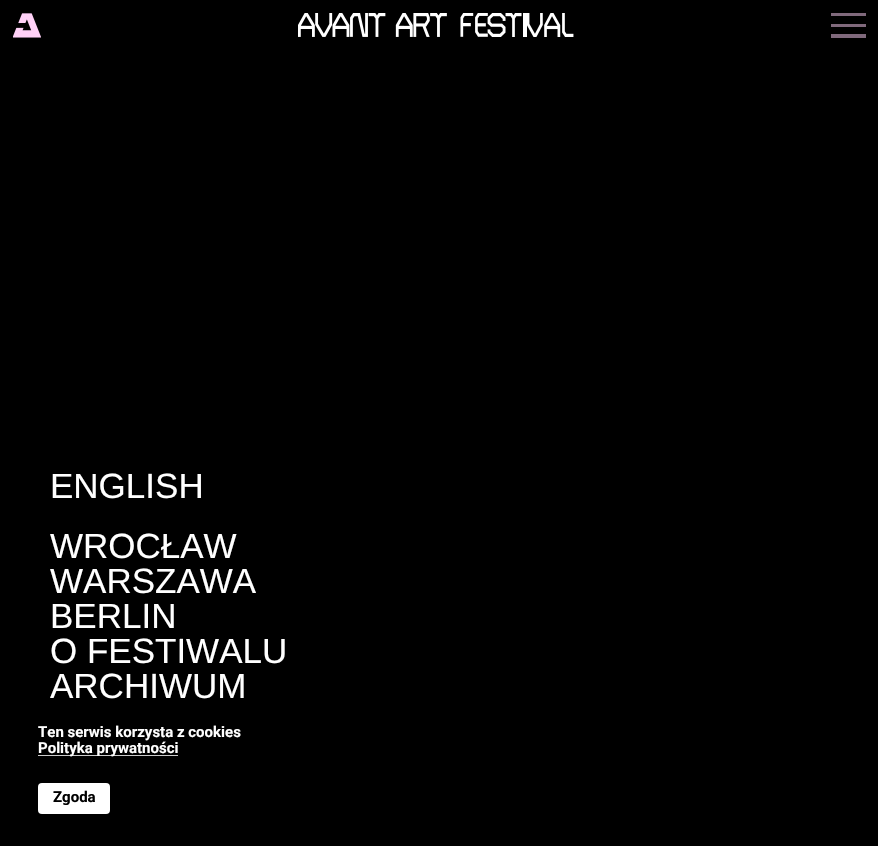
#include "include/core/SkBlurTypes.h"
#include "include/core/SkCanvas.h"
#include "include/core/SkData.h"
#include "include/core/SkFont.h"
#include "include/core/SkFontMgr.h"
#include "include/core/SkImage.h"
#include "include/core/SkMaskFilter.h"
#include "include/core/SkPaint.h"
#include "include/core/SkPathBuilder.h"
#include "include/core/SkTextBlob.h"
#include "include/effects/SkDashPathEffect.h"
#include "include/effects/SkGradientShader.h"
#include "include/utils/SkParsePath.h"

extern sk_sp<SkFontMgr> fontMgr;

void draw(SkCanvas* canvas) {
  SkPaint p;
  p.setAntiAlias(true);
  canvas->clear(SK_ColorBLACK);
  canvas->drawImageRect(SkImages::DeferredFromEncodedData(SkData::MakeFromFileName("images/1.png")), SkRect::MakeLTRB(13, 13, 41, 38), SkSamplingOptions());
  canvas->drawImageRect(SkImages::DeferredFromEncodedData(SkData::MakeFromFileName("images/2.png")), SkRect::MakeLTRB(298, 13, 574, 37), SkSamplingOptions());
  p.setColor(SkColorSetRGB(128, 105, 124));
  canvas->drawRect(SkRect::MakeLTRB(831, 13, 866, 16), p);
  canvas->drawRect(SkRect::MakeLTRB(831, 24, 866, 27), p);
  canvas->drawRect(SkRect::MakeLTRB(831, 34, 866, 38), p);
  canvas->save();
  canvas->clipPath(SkPathBuilder(SkPathFillType::kEvenOdd).moveTo(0, 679).lineTo(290, 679).lineTo(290, 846).lineTo(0, 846).close().moveTo(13, 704).lineTo(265, 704).lineTo(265, 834).lineTo(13, 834).close().detach(), true);
  p.setColor(SkColorSetARGB(26, 0, 0, 0));
  p.setMaskFilter(SkMaskFilter::MakeBlur(kNormal_SkBlurStyle, 6));
  canvas->drawRect(SkRect::MakeLTRB(19, 698, 271, 828), p);
  p.setMaskFilter(nullptr);
  canvas->restore();
  p.setColor(SkColorSetRGB(204, 204, 204));
  canvas->drawRect(SkRect::MakeLTRB(38, 755, 178, 756), p);
  p.setColor(SK_ColorWHITE);
  canvas->drawRoundRect(SkRect::MakeLTRB(38, 783, 110, 814), 4, 4, p);
  SkFont font1(fontMgr->matchFamilyStyle("Liberation Sans", SkFontStyle::Normal()), 35);
  font1.setSubpixel(true);
  canvas->drawString("ENGLISH", 50, 498, font1, p);
  canvas->drawString("WROCŁAW", 50, 558, font1, p);
  canvas->drawString("WARSZAWA", 50, 593, font1, p);
  canvas->drawString("BERLIN", 50, 628, font1, p);
  canvas->drawString("O FESTIWALU", 50, 663, font1, p);
  canvas->drawString("ARCHIWUM", 50, 698, font1, p);
  SkFont font2(fontMgr->matchFamilyStyle("Roboto", SkFontStyle::Bold()), 15);
  font2.setSubpixel(true);
  canvas->drawString("Ten serwis korzysta z cookies", 38, 737, font2, p);
  canvas->drawString("Polityka prywatności", 38, 753, font2, p);
  p.setColor(SK_ColorBLACK);
  canvas->drawString("Zgoda", 53, 802, font2, p);
}
